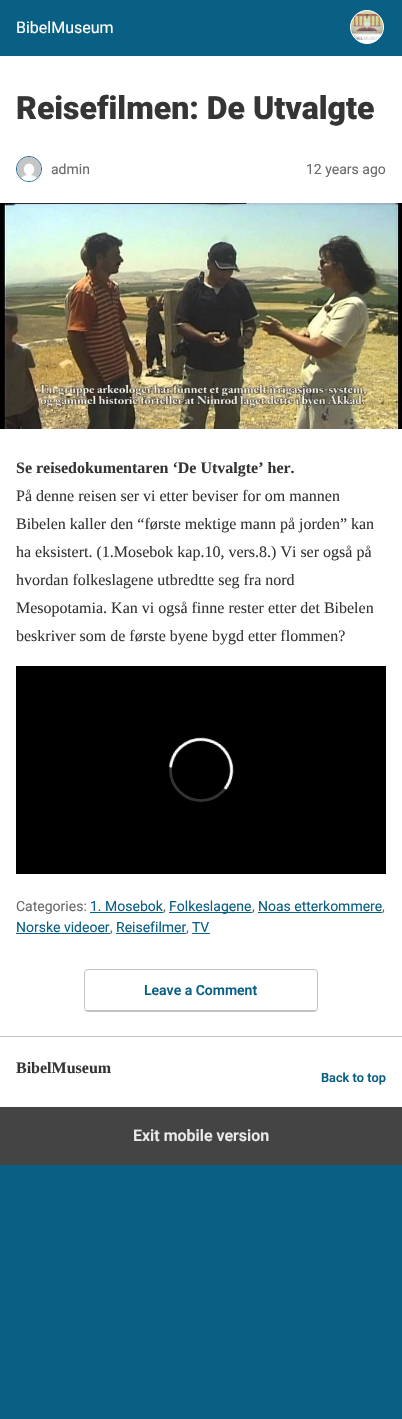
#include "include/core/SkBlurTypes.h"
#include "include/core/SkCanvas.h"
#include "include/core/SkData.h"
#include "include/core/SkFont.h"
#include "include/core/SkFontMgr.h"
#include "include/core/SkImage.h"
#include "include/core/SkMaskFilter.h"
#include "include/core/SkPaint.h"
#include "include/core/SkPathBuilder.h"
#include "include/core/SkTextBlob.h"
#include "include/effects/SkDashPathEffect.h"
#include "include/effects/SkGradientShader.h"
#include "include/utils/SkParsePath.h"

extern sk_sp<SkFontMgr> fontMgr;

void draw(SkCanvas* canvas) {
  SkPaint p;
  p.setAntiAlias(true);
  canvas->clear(SkColorSetRGB(10, 95, 133));
  p.setColor(SK_ColorWHITE);
  canvas->drawRect(SkRect::MakeLTRB(0, 56, 402, 1107), p);
  canvas->drawCircle(367, 27, 16.5f, p);
  p.setStyle(SkPaint::kStroke_Style);
  p.setStrokeWidth(1);
  canvas->drawCircle(367, 27, 16.5f, p);
  canvas->drawImageRect(SkImages::DeferredFromEncodedData(SkData::MakeFromFileName("images/1.png")), SkRect::MakeLTRB(351, 11, 383, 40), SkSamplingOptions());
  p.setColor(SkColorSetRGB(10, 95, 133));
  canvas->drawCircle(29, 169, 12.5f, p);
  canvas->drawImageRect(SkImages::DeferredFromEncodedData(SkData::MakeFromFileName("images/2.png")), SkRect::MakeLTRB(17, 157, 41, 181), SkSamplingOptions());
  canvas->drawImageRect(SkImages::DeferredFromEncodedData(SkData::MakeFromFileName("images/3.png")), SkRect::MakeLTRB(0, 203, 402, 429), SkSamplingOptions());
  canvas->drawImageRect(SkImages::DeferredFromEncodedData(SkData::MakeFromFileName("images/4.png")), SkRect::MakeLTRB(16, 666, 386, 874), SkSamplingOptions());
  p.setStyle(SkPaint::kFill_Style);
  canvas->drawRect(SkRect::MakeLTRB(90, 912, 163, 913), p);
  canvas->drawRect(SkRect::MakeLTRB(169, 912, 252, 913), p);
  canvas->drawRect(SkRect::MakeLTRB(258, 912, 382, 913), p);
  canvas->drawRect(SkRect::MakeLTRB(16, 933, 110, 934), p);
  canvas->drawRect(SkRect::MakeLTRB(116, 933, 186, 934), p);
  canvas->drawRect(SkRect::MakeLTRB(192, 933, 210, 934), p);
  p.setStyle(SkPaint::kStroke_Style);
  p.setColor(SkColorSetRGB(194, 194, 194));
  canvas->drawRoundRect(SkRect::MakeLTRB(84.5f, 969.5f, 317.5f, 1011.5f), 3.5f, 3.5f, p);
  p.setStyle(SkPaint::kFill_Style);
  canvas->drawRect(SkRect::MakeLTRB(86, 1010, 316, 1011), p);
  canvas->drawRect(SkRect::MakeLTRB(0, 1036, 402, 1037), p);
  p.setColor(SkColorSetRGB(68, 68, 68));
  canvas->drawRect(SkRect::MakeLTRB(0, 1107, 402, 1165), p);
  SkFont font1(fontMgr->matchFamilyStyle("Roboto", SkFontStyle::Normal()), 16);
  font1.setSubpixel(true);
  p.setColor(SK_ColorWHITE);
  canvas->drawString("BibelMuseum", 16, 33, font1, p);
  SkFont font2(fontMgr->matchFamilyStyle("Roboto", SkFontStyle(900, SkFontStyle::kNormal_Width, SkFontStyle::kUpright_Slant)), 32);
  font2.setSubpixel(true);
  p.setColor(SkColorSetRGB(53, 53, 53));
  canvas->drawString("Reisefilmen: De Utvalgte", 16, 119, font2, p);
  SkFont font3(fontMgr->matchFamilyStyle("Roboto", SkFontStyle::Normal()), 14);
  font3.setSubpixel(true);
  p.setColor(SkColorSetRGB(105, 105, 105));
  canvas->drawString("admin", 51, 174, font3, p);
  canvas->drawString("12 years ago", 306, 174, font3, p);
  SkFont font4(fontMgr->matchFamilyStyle("Liberation Serif", SkFontStyle::Bold()), 16);
  font4.setSubpixel(true);
  p.setColor(SkColorSetRGB(53, 53, 53));
  canvas->drawString("Se reisedokumentaren ‘De Utvalgte’ her.", 16, 473, font4, p);
  SkFont font5(fontMgr->matchFamilyStyle("Liberation Serif", SkFontStyle::Normal()), 16);
  font5.setSubpixel(true);
  canvas->drawString("På denne reisen ser vi etter beviser for om mannen", 16, 501, font5, p);
  canvas->drawString("Bibelen kaller den “første mektige mann på jorden” kan", 16, 529, font5, p);
  canvas->drawString("ha eksistert. (1.Mosebok kap.10, vers.8.) Vi ser også på", 16, 557, font5, p);
  canvas->drawString("hvordan folkeslagene utbredtte seg fra nord", 16, 585, font5, p);
  canvas->drawString("Mesopotamia. Kan vi også finne rester etter det Bibelen", 16, 613, font5, p);
  canvas->drawString("beskriver som de første byene bygd etter flommen?", 16, 641, font5, p);
  p.setColor(SkColorSetRGB(105, 105, 105));
  canvas->drawString("Categories:", 16, 911, font3, p);
  p.setColor(SkColorSetRGB(10, 95, 133));
  canvas->drawString("1. Mosebok", 90, 911, font3, p);
  p.setColor(SkColorSetRGB(105, 105, 105));
  canvas->drawString(",", 163, 911, font3, p);
  p.setColor(SkColorSetRGB(10, 95, 133));
  canvas->drawString("Folkeslagene", 169, 911, font3, p);
  p.setColor(SkColorSetRGB(105, 105, 105));
  canvas->drawString(",", 252, 911, font3, p);
  p.setColor(SkColorSetRGB(10, 95, 133));
  canvas->drawString("Noas etterkommere", 258, 911, font3, p);
  p.setColor(SkColorSetRGB(105, 105, 105));
  canvas->drawString(",", 382, 911, font3, p);
  p.setColor(SkColorSetRGB(10, 95, 133));
  canvas->drawString("Norske videoer", 16, 932, font3, p);
  p.setColor(SkColorSetRGB(105, 105, 105));
  canvas->drawString(",", 110, 932, font3, p);
  p.setColor(SkColorSetRGB(10, 95, 133));
  canvas->drawString("Reisefilmer", 116, 932, font3, p);
  p.setColor(SkColorSetRGB(105, 105, 105));
  canvas->drawString(",", 186, 932, font3, p);
  p.setColor(SkColorSetRGB(10, 95, 133));
  canvas->drawString("TV", 192, 932, font3, p);
  SkFont font6(fontMgr->matchFamilyStyle("Roboto", SkFontStyle(600, SkFontStyle::kNormal_Width, SkFontStyle::kUpright_Slant)), 14);
  font6.setSubpixel(true);
  canvas->drawString("Leave a Comment", 144, 995, font6, p);
  p.setColor(SkColorSetRGB(53, 53, 53));
  canvas->drawString("BibelMuseum", 16, 1073, font4, p);
  SkFont font7(fontMgr->matchFamilyStyle("Roboto", SkFontStyle(600, SkFontStyle::kNormal_Width, SkFontStyle::kUpright_Slant)), 12.75f);
  font7.setSubpixel(true);
  p.setColor(SkColorSetRGB(10, 95, 133));
  canvas->drawString("Back to top", 321, 1082, font7, p);
  SkFont font8(fontMgr->matchFamilyStyle("Roboto", SkFontStyle(600, SkFontStyle::kNormal_Width, SkFontStyle::kUpright_Slant)), 16);
  font8.setSubpixel(true);
  p.setColor(SkColorSetRGB(234, 234, 234));
  canvas->drawString("Exit mobile version", 133, 1141, font8, p);
}
